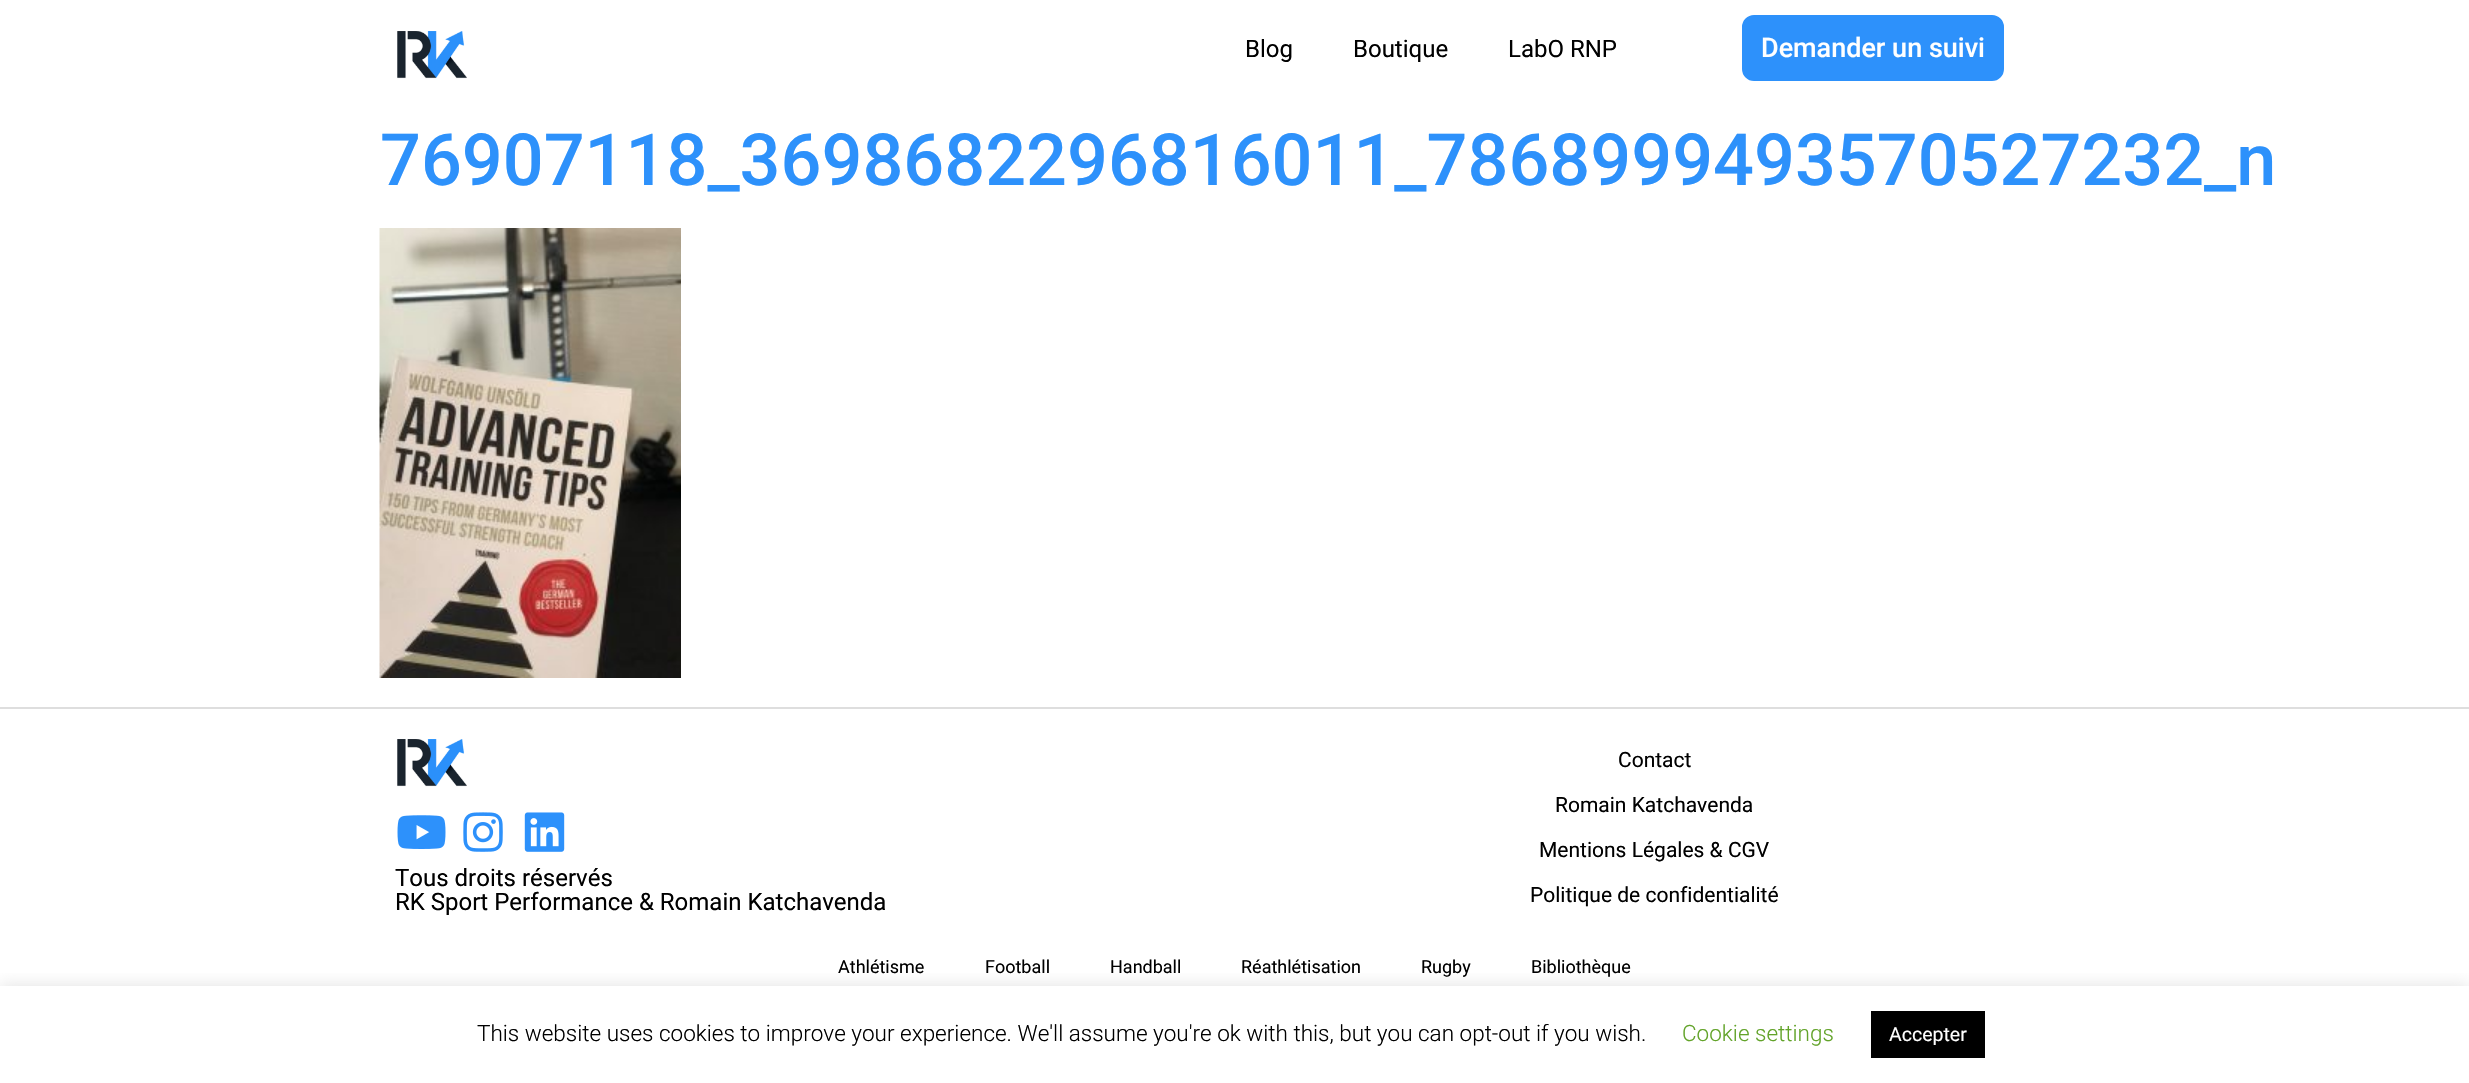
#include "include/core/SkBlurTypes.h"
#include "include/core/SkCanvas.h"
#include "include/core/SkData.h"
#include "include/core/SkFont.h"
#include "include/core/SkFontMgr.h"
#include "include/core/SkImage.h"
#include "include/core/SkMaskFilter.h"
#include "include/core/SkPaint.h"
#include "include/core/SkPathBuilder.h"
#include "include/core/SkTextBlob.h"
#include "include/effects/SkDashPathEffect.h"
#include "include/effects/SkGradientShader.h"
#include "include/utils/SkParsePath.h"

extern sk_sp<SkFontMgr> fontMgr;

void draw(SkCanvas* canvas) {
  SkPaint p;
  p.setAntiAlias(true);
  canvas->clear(SK_ColorWHITE);
  canvas->drawImageRect(SkImages::DeferredFromEncodedData(SkData::MakeFromFileName("images/1.png")), SkRect::MakeLTRB(397, 31, 467, 79), SkSamplingOptions());
  p.setColor(SkColorSetRGB(45, 145, 251));
  canvas->drawRoundRect(SkRect::MakeLTRB(1743, 16, 2003, 80), 11, 11, p);
  p.setStyle(SkPaint::kStroke_Style);
  p.setStrokeWidth(2);
  canvas->drawRoundRect(SkRect::MakeLTRB(1743, 16, 2003, 80), 11, 11, p);
  canvas->drawImageRect(SkImages::DeferredFromEncodedData(SkData::MakeFromFileName("images/2.png")), SkRect::MakeLTRB(379, 228, 681, 678), SkSamplingOptions());
  p.setStyle(SkPaint::kFill_Style);
  p.setColor(SkColorSetRGB(222, 222, 222));
  canvas->drawRect(SkRect::MakeLTRB(0, 707, 2469, 709), p);
  canvas->drawImageRect(SkImages::DeferredFromEncodedData(SkData::MakeFromFileName("images/1.png")), SkRect::MakeLTRB(397, 739, 467, 787), SkSamplingOptions());
  canvas->drawImageRect(SkImages::DeferredFromEncodedData(SkData::MakeFromFileName("images/3.png")), SkRect::MakeLTRB(397, 815, 446, 849), SkSamplingOptions());
  canvas->drawImageRect(SkImages::DeferredFromEncodedData(SkData::MakeFromFileName("images/4.png")), SkRect::MakeLTRB(463, 812, 503, 852), SkSamplingOptions());
  canvas->drawImageRect(SkImages::DeferredFromEncodedData(SkData::MakeFromFileName("images/5.png")), SkRect::MakeLTRB(524, 812, 565, 852), SkSamplingOptions());
  canvas->save();
  canvas->clipRect(SkRect::MakeLTRB(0, 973, 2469, 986));
  p.setColor(SkColorSetARGB(77, 172, 171, 171));
  p.setMaskFilter(SkMaskFilter::MakeBlur(kNormal_SkBlurStyle, 7.5f));
  canvas->drawRect(SkRect::MakeLTRB(0, 984, 2469, 1082), p);
  p.setMaskFilter(nullptr);
  canvas->restore();
  p.setColor(SK_ColorBLACK);
  canvas->drawRect(SkRect::MakeLTRB(1871, 1011, 1985, 1058), p);
  SkFont font1(fontMgr->matchFamilyStyle("Roboto", SkFontStyle::Normal()), 24);
  font1.setSubpixel(true);
  canvas->drawString("Blog", 1245, 57, font1, p);
  canvas->drawString("Boutique", 1353, 57, font1, p);
  canvas->drawString("LabO RNP", 1508, 57, font1, p);
  SkFont font2(fontMgr->matchFamilyStyle("Roboto", SkFontStyle(500, SkFontStyle::kNormal_Width, SkFontStyle::kUpright_Slant)), 27);
  font2.setSubpixel(true);
  p.setColor(SK_ColorWHITE);
  canvas->drawString("Demander un suivi", 1761, 57, font2, p);
  SkFont font3(fontMgr->matchFamilyStyle("Roboto", SkFontStyle(500, SkFontStyle::kNormal_Width, SkFontStyle::kUpright_Slant)), 72);
  font3.setSubpixel(true);
  p.setColor(SkColorSetRGB(45, 145, 251));
  canvas->drawString("76907118_3698682296816011_7868999493570527232_n", 380, 185, font3, p);
  p.setColor(SK_ColorBLACK);
  canvas->drawString("Tous droits réservés", 395, 886, font1, p);
  canvas->drawString("RK Sport Performance & Romain Katchavenda", 395, 910, font1, p);
  SkFont font4(fontMgr->matchFamilyStyle("Roboto", SkFontStyle::Normal()), 21);
  font4.setSubpixel(true);
  canvas->drawString("Contact", 1618, 767, font4, p);
  canvas->drawString("Romain Katchavenda", 1555, 812, font4, p);
  canvas->drawString("Mentions Légales & CGV", 1539, 857, font4, p);
  canvas->drawString("Politique de confidentialité", 1530, 902, font4, p);
  SkFont font5(fontMgr->matchFamilyStyle("Roboto", SkFontStyle::Normal()), 18);
  font5.setSubpixel(true);
  canvas->drawString("Athlétisme", 838, 973, font5, p);
  canvas->drawString("Football", 985, 973, font5, p);
  canvas->drawString("Handball", 1110, 973, font5, p);
  canvas->drawString("Réathlétisation", 1241, 973, font5, p);
  canvas->drawString("Rugby", 1421, 973, font5, p);
  canvas->drawString("Bibliothèque", 1531, 973, font5, p);
  SkFont font6(fontMgr->matchFamilyStyle("Roboto", SkFontStyle(300, SkFontStyle::kNormal_Width, SkFontStyle::kUpright_Slant)), 22.5f);
  font6.setSubpixel(true);
  canvas->drawString("This website uses cookies to improve your experience. We'll assume you're ok with this, but you can opt-out if you wish.", 477, 1041, font6, p);
  p.setColor(SkColorSetRGB(98, 163, 41));
  canvas->drawString("Cookie settings", 1682, 1041, font6, p);
  SkFont font7(fontMgr->matchFamilyStyle("Roboto", SkFontStyle::Normal()), 19.5f);
  font7.setSubpixel(true);
  p.setColor(SK_ColorWHITE);
  canvas->drawString("Accepter", 1889, 1041, font7, p);
}
